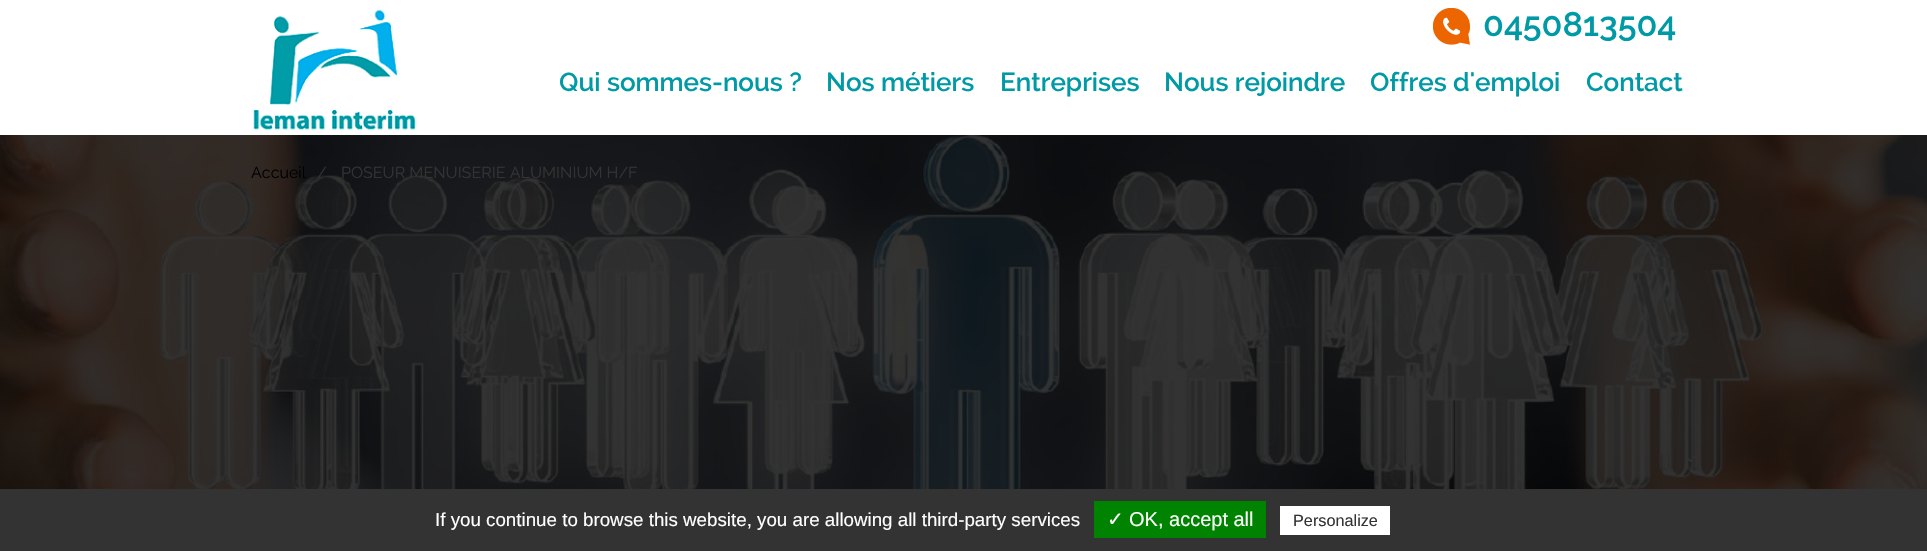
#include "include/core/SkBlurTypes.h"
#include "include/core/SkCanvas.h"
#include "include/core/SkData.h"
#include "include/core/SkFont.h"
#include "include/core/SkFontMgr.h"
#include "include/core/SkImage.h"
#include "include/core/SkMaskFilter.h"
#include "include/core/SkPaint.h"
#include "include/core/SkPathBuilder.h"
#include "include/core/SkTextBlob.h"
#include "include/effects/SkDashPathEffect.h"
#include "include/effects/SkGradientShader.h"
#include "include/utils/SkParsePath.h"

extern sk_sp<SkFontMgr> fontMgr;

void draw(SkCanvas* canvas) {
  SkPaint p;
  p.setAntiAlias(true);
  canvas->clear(SK_ColorWHITE);
  canvas->drawImageRect(SkImages::DeferredFromEncodedData(SkData::MakeFromFileName("images/1.png")), SkRect::MakeLTRB(253, 9, 416, 130), SkSamplingOptions());
  canvas->drawImageRect(SkImages::DeferredFromEncodedData(SkData::MakeFromFileName("images/2.png")), SkRect::MakeLTRB(1433, 8, 1470, 45), SkSamplingOptions());
  canvas->drawImageRect(SkImages::DeferredFromEncodedData(SkData::MakeFromFileName("images/3.png")), SkRect::MakeLTRB(0, 135, 1927, 489), SkSamplingOptions());
  p.setColor(SkColorSetRGB(51, 51, 51));
  canvas->drawRect(SkRect::MakeLTRB(0, 489, 1927, 551), p);
  p.setColor(SkColorSetRGB(0, 131, 0));
  canvas->drawRect(SkRect::MakeLTRB(1094, 501, 1266, 538), p);
  p.setColor(SK_ColorWHITE);
  canvas->drawRect(SkRect::MakeLTRB(1280, 506, 1390, 535), p);
  SkFont font1(fontMgr->matchFamilyStyle("Raleway", SkFontStyle(600, SkFontStyle::kNormal_Width, SkFontStyle::kUpright_Slant)), 34);
  font1.setSubpixel(true);
  p.setColor(SkColorSetRGB(0, 154, 166));
  canvas->drawString("0450813504", 1483, 36, font1, p);
  SkFont font2(fontMgr->matchFamilyStyle("Raleway", SkFontStyle(600, SkFontStyle::kNormal_Width, SkFontStyle::kUpright_Slant)), 26);
  font2.setSubpixel(true);
  canvas->drawString("Qui sommes-nous ?", 559, 91, font2, p);
  canvas->drawString("Nos métiers", 826, 91, font2, p);
  canvas->drawString("Entreprises", 1000, 91, font2, p);
  canvas->drawString("Nous rejoindre", 1164, 91, font2, p);
  canvas->drawString("Offres d'emploi", 1370, 91, font2, p);
  canvas->drawString("Contact", 1586, 91, font2, p);
  SkFont font3(fontMgr->matchFamilyStyle("Raleway", SkFontStyle::Normal()), 16);
  font3.setSubpixel(true);
  p.setColor(SK_ColorBLACK);
  canvas->drawString("Accueil", 251, 178, font3, p);
  p.setColor(SkColorSetRGB(51, 51, 51));
  canvas->drawString("/", 317, 178, font3, p);
  canvas->drawString("POSEUR MENUISERIE ALUMINIUM H/F", 341, 178, font3, p);
  SkFont font4(fontMgr->matchFamilyStyle("Liberation Sans", SkFontStyle::Normal()), 18.75f);
  font4.setSubpixel(true);
  p.setColor(SK_ColorWHITE);
  canvas->drawString("If you continue to browse this website, you are allowing all third-party services", 435, 526, font4, p);
  SkFont font5(fontMgr->matchFamilyStyle("DejaVu Sans", SkFontStyle::Normal()), 20);
  font5.setSubpixel(true);
  canvas->drawString("✓", 1107, 526, font5, p);
  SkFont font6(fontMgr->matchFamilyStyle("Liberation Sans", SkFontStyle::Normal()), 20);
  font6.setSubpixel(true);
  canvas->drawString("OK, accept all", 1129, 526, font6, p);
  SkFont font7(fontMgr->matchFamilyStyle("Liberation Sans", SkFontStyle::Normal()), 16.25f);
  font7.setSubpixel(true);
  p.setColor(SkColorSetRGB(51, 51, 51));
  canvas->drawString("Personalize", 1293, 526, font7, p);
}
